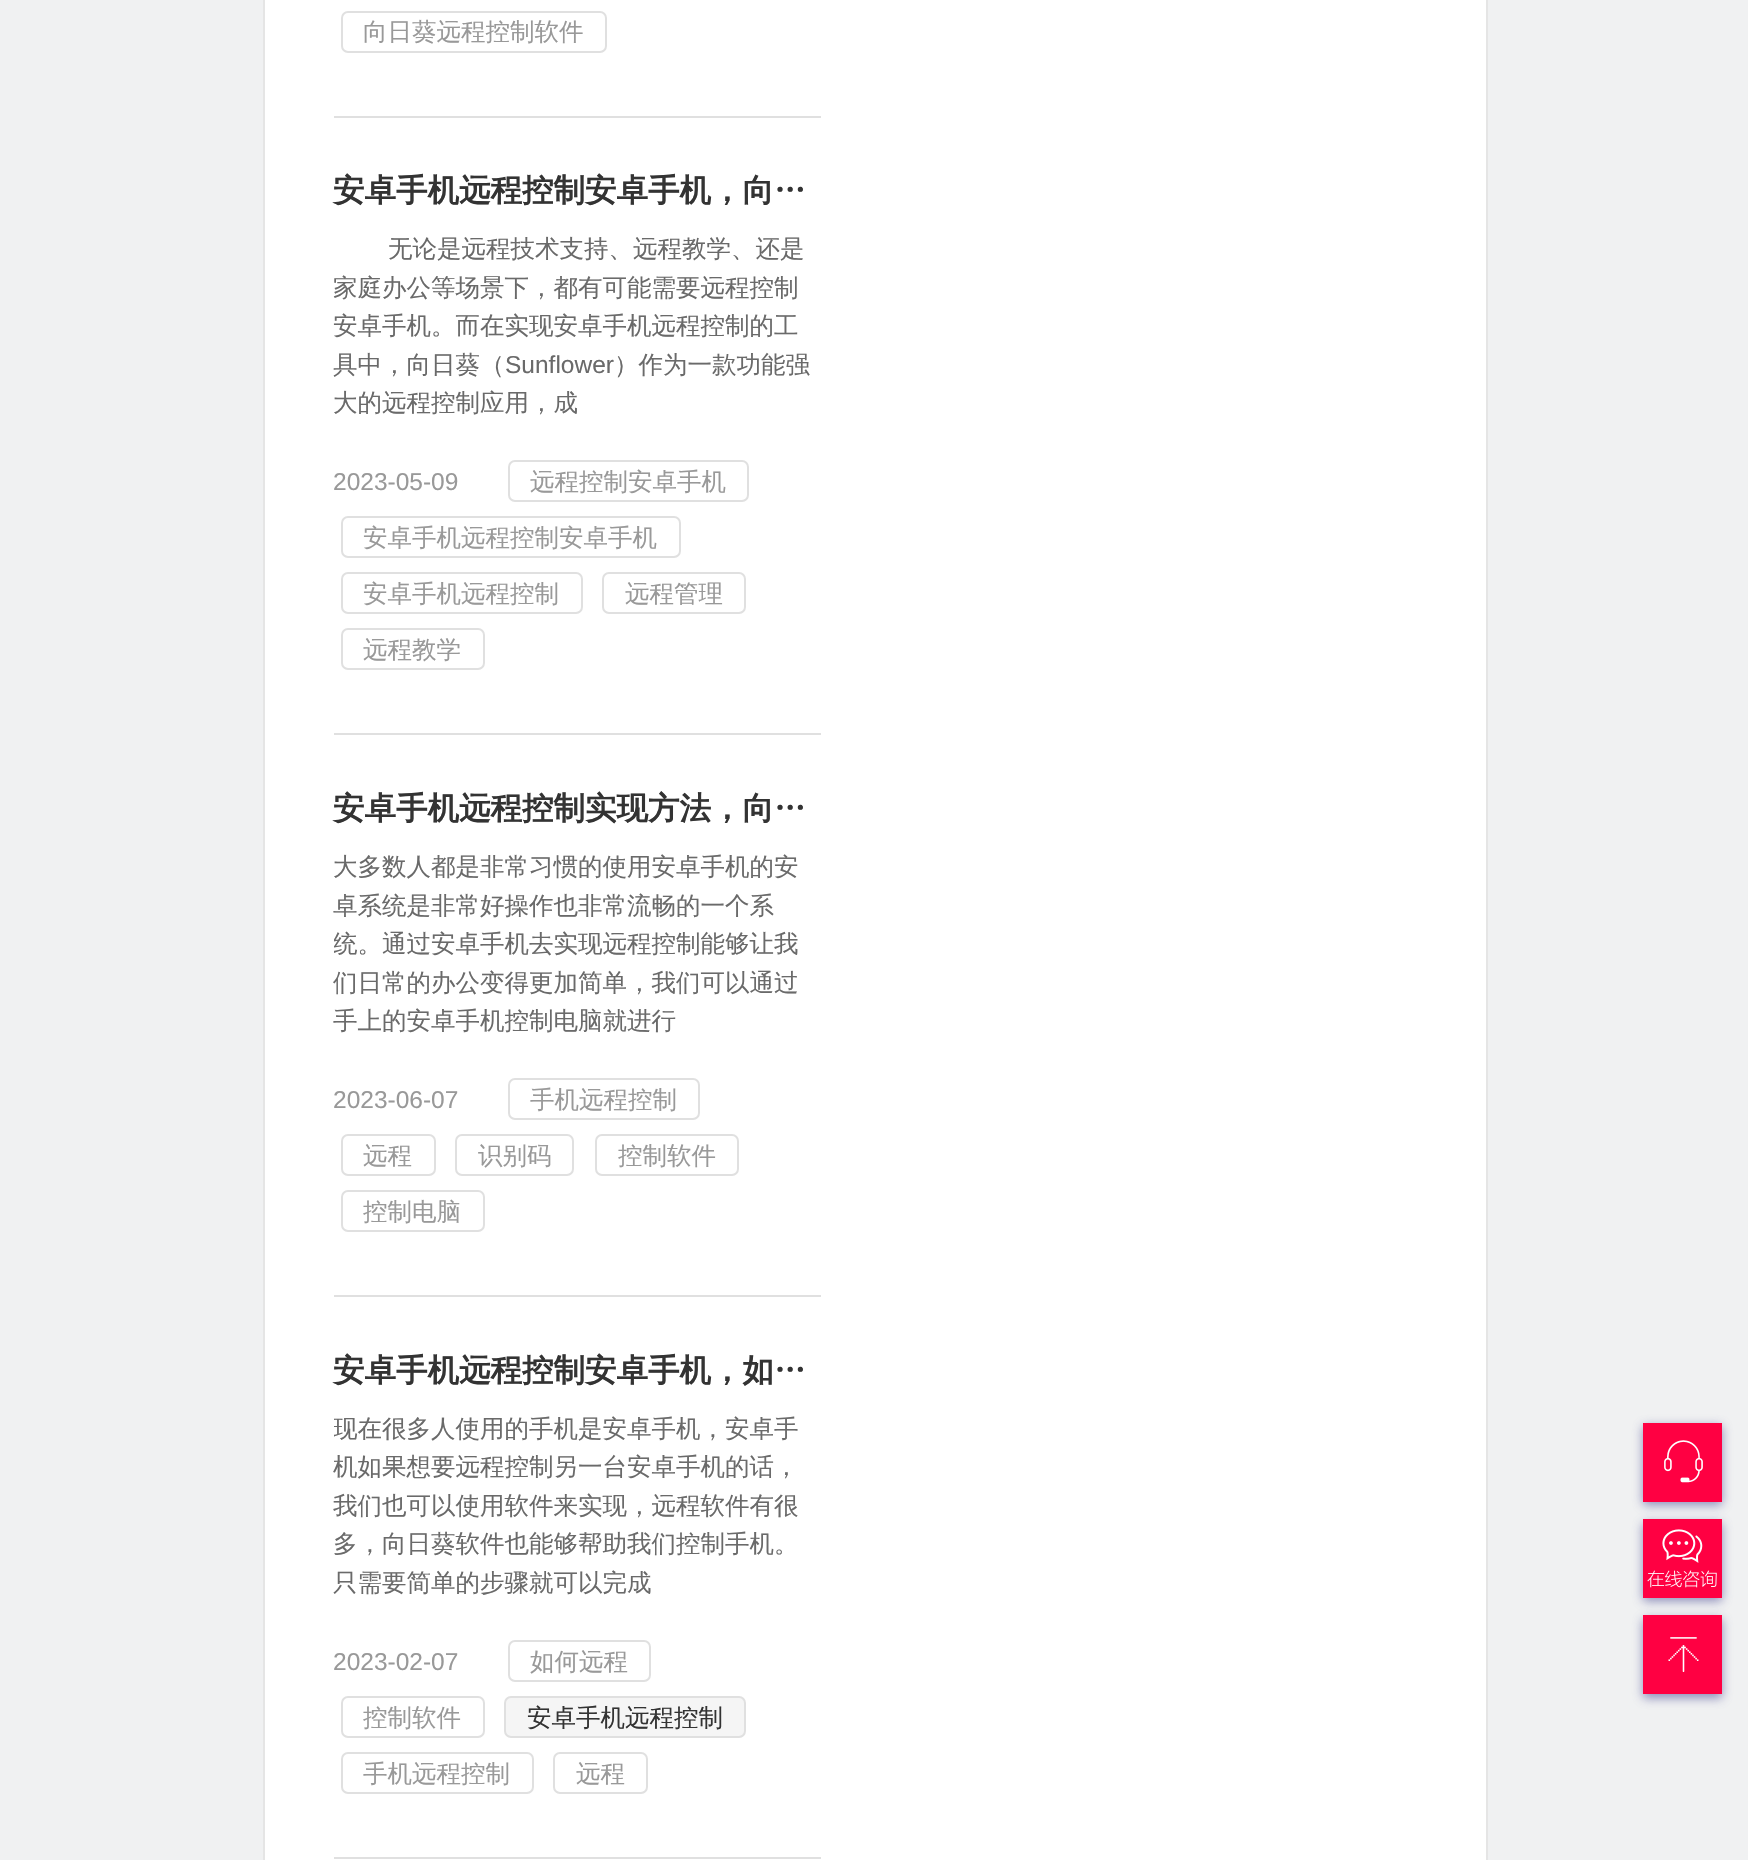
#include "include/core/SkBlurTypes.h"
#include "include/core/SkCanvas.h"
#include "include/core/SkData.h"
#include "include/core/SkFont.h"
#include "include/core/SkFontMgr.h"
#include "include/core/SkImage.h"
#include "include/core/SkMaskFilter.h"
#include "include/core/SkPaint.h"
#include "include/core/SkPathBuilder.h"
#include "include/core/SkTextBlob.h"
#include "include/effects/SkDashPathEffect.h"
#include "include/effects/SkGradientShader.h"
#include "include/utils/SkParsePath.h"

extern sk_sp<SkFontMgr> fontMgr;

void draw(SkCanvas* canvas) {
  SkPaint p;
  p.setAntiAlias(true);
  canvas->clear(SkColorSetRGB(240, 241, 242));
  p.setColor(SK_ColorWHITE);
  canvas->drawRect(SkRect::MakeLTRB(264, -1, 1487, 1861), p);
  p.setStyle(SkPaint::kStroke_Style);
  p.setStrokeWidth(2);
  p.setColor(SkColorSetRGB(229, 229, 229));
  canvas->drawRect(SkRect::MakeLTRB(264, -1, 1487, 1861), p);
  p.setStyle(SkPaint::kFill_Style);
  p.setColor(SkColorSetRGB(224, 224, 224));
  canvas->drawRect(SkRect::MakeLTRB(334, 116, 821, 118), p);
  p.setStyle(SkPaint::kStroke_Style);
  canvas->drawRoundRect(SkRect::MakeLTRB(342, 12, 606, 52), 6, 6, p);
  p.setStyle(SkPaint::kFill_Style);
  canvas->drawRect(SkRect::MakeLTRB(334, 733, 821, 735), p);
  p.setStyle(SkPaint::kStroke_Style);
  canvas->drawRoundRect(SkRect::MakeLTRB(509, 461, 748, 501), 6, 6, p);
  canvas->drawRoundRect(SkRect::MakeLTRB(342, 517, 680, 557), 6, 6, p);
  canvas->drawRoundRect(SkRect::MakeLTRB(342, 573, 582, 613), 6, 6, p);
  canvas->drawRoundRect(SkRect::MakeLTRB(603, 573, 745, 613), 6, 6, p);
  canvas->drawRoundRect(SkRect::MakeLTRB(342, 629, 484, 669), 6, 6, p);
  p.setStyle(SkPaint::kFill_Style);
  canvas->drawRect(SkRect::MakeLTRB(334, 1295, 821, 1297), p);
  p.setStyle(SkPaint::kStroke_Style);
  canvas->drawRoundRect(SkRect::MakeLTRB(509, 1079, 699, 1119), 6, 6, p);
  canvas->drawRoundRect(SkRect::MakeLTRB(342, 1135, 435, 1175), 6, 6, p);
  canvas->drawRoundRect(SkRect::MakeLTRB(456, 1135, 573, 1175), 6, 6, p);
  canvas->drawRoundRect(SkRect::MakeLTRB(596, 1135, 738, 1175), 6, 6, p);
  canvas->drawRoundRect(SkRect::MakeLTRB(342, 1191, 484, 1231), 6, 6, p);
  p.setStyle(SkPaint::kFill_Style);
  canvas->drawRect(SkRect::MakeLTRB(334, 1857, 821, 1859), p);
  p.setStyle(SkPaint::kStroke_Style);
  canvas->drawRoundRect(SkRect::MakeLTRB(509, 1641, 650, 1681), 6, 6, p);
  canvas->drawRoundRect(SkRect::MakeLTRB(342, 1697, 484, 1737), 6, 6, p);
  p.setStyle(SkPaint::kFill_Style);
  p.setColor(SkColorSetRGB(245, 245, 245));
  canvas->drawRoundRect(SkRect::MakeLTRB(505, 1697, 745, 1737), 6, 6, p);
  p.setStyle(SkPaint::kStroke_Style);
  p.setColor(SkColorSetRGB(224, 224, 224));
  canvas->drawRoundRect(SkRect::MakeLTRB(505, 1697, 745, 1737), 6, 6, p);
  canvas->drawRoundRect(SkRect::MakeLTRB(342, 1753, 533, 1793), 6, 6, p);
  canvas->drawRoundRect(SkRect::MakeLTRB(554, 1753, 647, 1793), 6, 6, p);
  p.setStyle(SkPaint::kFill_Style);
  p.setColor(SkColorSetARGB(179, 95, 95, 160));
  p.setMaskFilter(SkMaskFilter::MakeBlur(kNormal_SkBlurStyle, 5));
  canvas->drawRect(SkRect::MakeLTRB(1643, 1426, 1722, 1505), p);
  p.setMaskFilter(nullptr);
  p.setColor(SkColorSetRGB(255, 0, 66));
  canvas->drawRect(SkRect::MakeLTRB(1643, 1423, 1722, 1502), p);
  canvas->drawImageRect(SkImages::DeferredFromEncodedData(SkData::MakeFromFileName("images/1.png")), SkRect::MakeLTRB(1664, 1440, 1703, 1483), SkSamplingOptions());
  p.setColor(SkColorSetARGB(179, 95, 95, 160));
  p.setMaskFilter(SkMaskFilter::MakeBlur(kNormal_SkBlurStyle, 5));
  canvas->drawRect(SkRect::MakeLTRB(1643, 1523, 1722, 1601), p);
  p.setMaskFilter(nullptr);
  p.setColor(SkColorSetRGB(255, 0, 66));
  canvas->drawRect(SkRect::MakeLTRB(1643, 1519, 1722, 1598), p);
  canvas->drawImageRect(SkImages::DeferredFromEncodedData(SkData::MakeFromFileName("images/2.png")), SkRect::MakeLTRB(1647, 1529, 1717, 1588), SkSamplingOptions());
  p.setColor(SkColorSetARGB(179, 95, 95, 160));
  p.setMaskFilter(SkMaskFilter::MakeBlur(kNormal_SkBlurStyle, 5));
  canvas->drawRect(SkRect::MakeLTRB(1643, 1619, 1722, 1698), p);
  p.setMaskFilter(nullptr);
  p.setColor(SkColorSetRGB(255, 0, 66));
  canvas->drawRect(SkRect::MakeLTRB(1643, 1615, 1722, 1694), p);
  canvas->drawImageRect(SkImages::DeferredFromEncodedData(SkData::MakeFromFileName("images/3.png")), SkRect::MakeLTRB(1668, 1637, 1699, 1672), SkSamplingOptions());
  SkFont font1(fontMgr->matchFamilyStyle("WenQuanYi Zen Hei", SkFontStyle(500, SkFontStyle::kNormal_Width, SkFontStyle::kUpright_Slant)), 24.5f);
  font1.setSubpixel(true);
  p.setColor(SkColorSetRGB(153, 153, 153));
  canvas->drawString("向日葵远程控制软件", 363, 40, font1, p);
  SkFont font2(fontMgr->matchFamilyStyle("WenQuanYi Zen Hei", SkFontStyle::Bold()), 31.5f);
  font2.setSubpixel(true);
  p.setColor(SkColorSetRGB(51, 51, 51));
  canvas->drawString("安卓手机远程控制安卓手机，向…", 333, 201, font2, p);
  p.setColor(SkColorSetRGB(106, 106, 106));
  canvas->drawString("无论是远程技术支持、远程教学、还是", 388, 257, font1, p);
  canvas->drawString("家庭办公等场景下，都有可能需要远程控制", 333, 296, font1, p);
  canvas->drawString("安卓手机。而在实现安卓手机远程控制的工", 333, 334, font1, p);
  canvas->drawString("具中，向日葵（", 333, 373, font1, p);
  SkFont font3(fontMgr->matchFamilyStyle("Liberation Sans", SkFontStyle::Normal()), 24.5f);
  font3.setSubpixel(true);
  canvas->drawString("Sunflower", 505, 373, font3, p);
  canvas->drawString("）作为一款功能强", 614, 373, font1, p);
  canvas->drawString("大的远程控制应用，成", 333, 411, font1, p);
  p.setColor(SkColorSetRGB(153, 153, 153));
  canvas->drawString("2023-05-09", 333, 490, font3, p);
  canvas->drawString("远程控制安卓手机", 530, 490, font1, p);
  canvas->drawString("安卓手机远程控制安卓手机", 363, 546, font1, p);
  canvas->drawString("安卓手机远程控制", 363, 602, font1, p);
  canvas->drawString("远程管理", 625, 602, font1, p);
  canvas->drawString("远程教学", 363, 658, font1, p);
  p.setColor(SkColorSetRGB(51, 51, 51));
  canvas->drawString("安卓手机远程控制实现方法，向…", 333, 819, font2, p);
  p.setColor(SkColorSetRGB(106, 106, 106));
  canvas->drawString("大多数人都是非常习惯的使用安卓手机的安", 333, 875, font1, p);
  canvas->drawString("卓系统是非常好操作也非常流畅的一个系", 333, 914, font1, p);
  canvas->save();
  canvas->clipRect(SkRect::MakeLTRB(334, 0, 821, 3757));
  canvas->drawString("统。通过安卓手机去实现远程控制能够让我", 333, 952, font1, p);
  canvas->restore();
  canvas->drawString("们日常的办公变得更加简单，我们可以通过", 333, 991, font1, p);
  canvas->drawString("手上的安卓手机控制电脑就进行", 333, 1029, font1, p);
  p.setColor(SkColorSetRGB(153, 153, 153));
  canvas->drawString("2023-06-07", 333, 1108, font3, p);
  canvas->drawString("手机远程控制", 530, 1108, font1, p);
  canvas->drawString("远程", 363, 1164, font1, p);
  canvas->drawString("识别码", 478, 1164, font1, p);
  canvas->drawString("控制软件", 618, 1164, font1, p);
  canvas->drawString("控制电脑", 363, 1220, font1, p);
  p.setColor(SkColorSetRGB(51, 51, 51));
  canvas->drawString("安卓手机远程控制安卓手机，如…", 333, 1381, font2, p);
  canvas->save();
  canvas->clipRect(SkRect::MakeLTRB(334, 0, 821, 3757));
  p.setColor(SkColorSetRGB(106, 106, 106));
  canvas->drawString("现在很多人使用的手机是安卓手机，安卓手", 333, 1437, font1, p);
  canvas->restore();
  canvas->drawString("机如果想要远程控制另一台安卓手机的话，", 333, 1475, font1, p);
  canvas->drawString("我们也可以使用软件来实现，远程软件有很", 333, 1514, font1, p);
  canvas->drawString("多，向日葵软件也能够帮助我们控制手机。", 333, 1552, font1, p);
  canvas->drawString("只需要简单的步骤就可以完成", 333, 1591, font1, p);
  p.setColor(SkColorSetRGB(153, 153, 153));
  canvas->drawString("2023-02-07", 333, 1670, font3, p);
  canvas->drawString("如何远程", 530, 1670, font1, p);
  canvas->drawString("控制软件", 363, 1726, font1, p);
  p.setColor(SkColorSetRGB(51, 51, 51));
  canvas->drawString("安卓手机远程控制", 527, 1726, font1, p);
  p.setColor(SkColorSetRGB(153, 153, 153));
  canvas->drawString("手机远程控制", 363, 1782, font1, p);
  canvas->drawString("远程", 576, 1782, font1, p);
}
